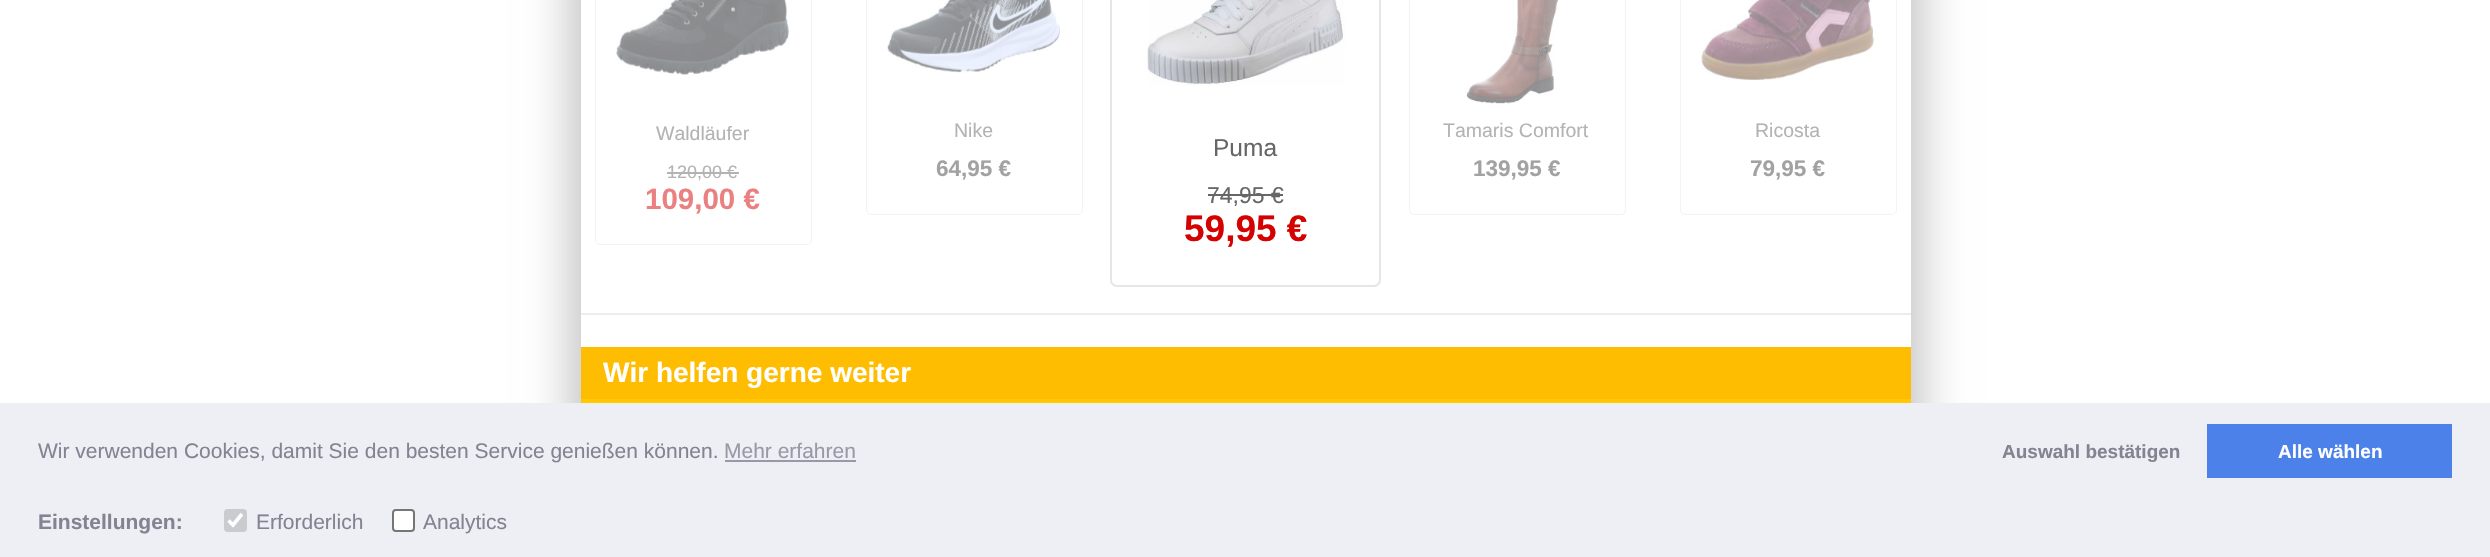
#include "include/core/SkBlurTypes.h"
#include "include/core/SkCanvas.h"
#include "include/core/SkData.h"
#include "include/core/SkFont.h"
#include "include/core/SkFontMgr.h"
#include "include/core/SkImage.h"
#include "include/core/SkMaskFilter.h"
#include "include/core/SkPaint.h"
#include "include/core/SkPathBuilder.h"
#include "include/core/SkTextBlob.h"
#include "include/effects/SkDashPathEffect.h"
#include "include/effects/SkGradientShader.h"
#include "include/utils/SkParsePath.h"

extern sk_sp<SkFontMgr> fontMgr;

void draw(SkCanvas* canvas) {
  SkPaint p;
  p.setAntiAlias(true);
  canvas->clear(SK_ColorWHITE);
  canvas->save();
  canvas->clipPath(SkPathBuilder(SkPathFillType::kEvenOdd).moveTo(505, 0).lineTo(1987, 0).lineTo(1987, 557).lineTo(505, 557).close().moveTo(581, -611).lineTo(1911, -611).lineTo(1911, 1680).lineTo(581, 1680).close().detach(), true);
  p.setColor(SkColorSetARGB(64, 0, 0, 0));
  p.setMaskFilter(SkMaskFilter::MakeBlur(kNormal_SkBlurStyle, 22));
  canvas->drawRect(SkRect::MakeLTRB(572, -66, 1920, 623), p);
  p.setMaskFilter(nullptr);
  canvas->restore();
  p.setStyle(SkPaint::kStroke_Style);
  p.setStrokeWidth(1);
  p.setColor(SkColorSetRGB(243, 243, 243));
  canvas->drawRoundRect(SkRect::MakeLTRB(595.5f, -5.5f, 811.5f, 244.5f), 4.5f, 4.5f, p);
  canvas->drawImageRect(SkImages::DeferredFromEncodedData(SkData::MakeFromFileName("images/1.png")), SkRect::MakeLTRB(616, 0, 789, 75), SkSamplingOptions());
  p.setStyle(SkPaint::kFill_Style);
  p.setColor(SkColorSetRGB(179, 179, 179));
  canvas->drawRect(SkRect::MakeLTRB(667, 172, 739, 174), p);
  p.setStyle(SkPaint::kStroke_Style);
  p.setColor(SkColorSetRGB(243, 243, 243));
  canvas->drawRoundRect(SkRect::MakeLTRB(866.5f, -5.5f, 1082.5f, 214.5f), 4.5f, 4.5f, p);
  canvas->drawImageRect(SkImages::DeferredFromEncodedData(SkData::MakeFromFileName("images/2.png")), SkRect::MakeLTRB(887, 0, 1060, 73), SkSamplingOptions());
  p.setStrokeWidth(2);
  p.setColor(SkColorSetRGB(230, 230, 230));
  canvas->drawRoundRect(SkRect::MakeLTRB(1111, -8, 1380, 286), 6, 6, p);
  canvas->drawImageRect(SkImages::DeferredFromEncodedData(SkData::MakeFromFileName("images/3.png")), SkRect::MakeLTRB(1147, 0, 1345, 86), SkSamplingOptions());
  p.setStyle(SkPaint::kFill_Style);
  p.setColor(SkColorSetRGB(102, 102, 102));
  canvas->drawRect(SkRect::MakeLTRB(1208, 194, 1283, 196), p);
  p.setStyle(SkPaint::kStroke_Style);
  p.setStrokeWidth(1);
  p.setColor(SkColorSetRGB(243, 243, 243));
  canvas->drawRoundRect(SkRect::MakeLTRB(1409.5f, -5.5f, 1625.5f, 214.5f), 4.5f, 4.5f, p);
  canvas->drawImageRect(SkImages::DeferredFromEncodedData(SkData::MakeFromFileName("images/4.png")), SkRect::MakeLTRB(1466, 0, 1559, 104), SkSamplingOptions());
  canvas->drawRoundRect(SkRect::MakeLTRB(1680.5f, -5.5f, 1896.5f, 214.5f), 4.5f, 4.5f, p);
  canvas->drawImageRect(SkImages::DeferredFromEncodedData(SkData::MakeFromFileName("images/5.png")), SkRect::MakeLTRB(1701, 0, 1874, 80), SkSamplingOptions());
  p.setStyle(SkPaint::kFill_Style);
  p.setColor(SkColorSetRGB(236, 236, 236));
  canvas->drawRect(SkRect::MakeLTRB(581, 313, 1911, 315), p);
  p.setColor(SkColorSetRGB(255, 200, 1));
  canvas->drawRect(SkRect::MakeLTRB(581, 399, 1911, 403), p);
  p.setColor(SkColorSetRGB(254, 189, 0));
  canvas->drawRect(SkRect::MakeLTRB(581, 347, 1911, 399), p);
  p.setColor(SkColorSetRGB(237, 239, 245));
  canvas->drawRect(SkRect::MakeLTRB(0, 403, 2490, 557), p);
  p.setColor(SkColorSetRGB(152, 153, 165));
  canvas->drawRect(SkRect::MakeLTRB(725, 460, 856, 462), p);
  p.setColor(SkColorSetRGB(75, 129, 232));
  canvas->drawRect(SkRect::MakeLTRB(2207, 424, 2452, 478), p);
  p.setColor(SkColorSetRGB(201, 203, 207));
  canvas->drawRoundRect(SkRect::MakeLTRB(224, 509, 247, 532), 4, 4, p);
  p.setStyle(SkPaint::kStroke_Style);
  p.setStrokeWidth(3.6f);
  p.setColor(SK_ColorWHITE);
  canvas->drawPath(SkPathBuilder().moveTo(228.5f, 520.5f).lineTo(233, 525).lineTo(242, 514).detach(), p);
  p.setStyle(SkPaint::kFill_Style);
  canvas->drawRoundRect(SkRect::MakeLTRB(393, 510, 414, 531), 3, 3, p);
  p.setStyle(SkPaint::kStroke_Style);
  p.setStrokeWidth(2);
  p.setColor(SkColorSetRGB(118, 118, 118));
  canvas->drawRoundRect(SkRect::MakeLTRB(393, 510, 414, 531), 3, 3, p);
  SkFont font1(fontMgr->matchFamilyStyle("Liberation Sans", SkFontStyle::Normal()), 19.5f);
  font1.setSubpixel(true);
  p.setStyle(SkPaint::kFill_Style);
  p.setColor(SkColorSetRGB(179, 179, 179));
  canvas->drawString("Waldläufer", 656, 140, font1, p);
  SkFont font2(fontMgr->matchFamilyStyle("Liberation Sans", SkFontStyle::Normal()), 18);
  font2.setSubpixel(true);
  canvas->drawString("120,00 €", 667, 178, font2, p);
  SkFont font3(fontMgr->matchFamilyStyle("Liberation Sans", SkFontStyle::Bold()), 29.5f);
  font3.setSubpixel(true);
  p.setColor(SkColorSetRGB(234, 128, 128));
  canvas->drawString("109,00 €", 645, 209, font3, p);
  p.setColor(SkColorSetRGB(179, 179, 179));
  canvas->drawString("Nike", 954, 137, font1, p);
  SkFont font4(fontMgr->matchFamilyStyle("Liberation Sans", SkFontStyle::Bold()), 22.5f);
  font4.setSubpixel(true);
  p.setColor(SkColorSetRGB(162, 162, 162));
  canvas->drawString("64,95 €", 936, 176, font4, p);
  SkFont font5(fontMgr->matchFamilyStyle("Liberation Sans", SkFontStyle::Normal()), 24.5f);
  font5.setSubpixel(true);
  p.setColor(SkColorSetRGB(102, 102, 102));
  canvas->drawString("Puma", 1213, 156, font5, p);
  SkFont font6(fontMgr->matchFamilyStyle("Liberation Sans", SkFontStyle::Normal()), 23);
  font6.setSubpixel(true);
  canvas->drawString("74,95 €", 1207, 203, font6, p);
  SkFont font7(fontMgr->matchFamilyStyle("Liberation Sans", SkFontStyle::Bold()), 37);
  font7.setSubpixel(true);
  p.setColor(SkColorSetRGB(213, 0, 0));
  canvas->drawString("59,95 €", 1184, 241, font7, p);
  p.setColor(SkColorSetRGB(179, 179, 179));
  canvas->drawString("Tamaris Comfort", 1443, 137, font1, p);
  p.setColor(SkColorSetRGB(162, 162, 162));
  canvas->drawString("139,95 €", 1473, 176, font4, p);
  p.setColor(SkColorSetRGB(179, 179, 179));
  canvas->drawString("Ricosta", 1755, 137, font1, p);
  p.setColor(SkColorSetRGB(162, 162, 162));
  canvas->drawString("79,95 €", 1750, 176, font4, p);
  SkFont font8(fontMgr->matchFamilyStyle("Liberation Sans", SkFontStyle::Bold()), 28);
  font8.setSubpixel(true);
  p.setColor(SK_ColorWHITE);
  canvas->drawString("Wir helfen gerne weiter", 603, 382, font8, p);
  SkFont font9(fontMgr->matchFamilyStyle("Liberation Sans", SkFontStyle::Normal()), 21);
  font9.setSubpixel(true);
  p.setColor(SkColorSetRGB(131, 131, 145));
  canvas->drawString("Wir verwenden Cookies, damit Sie den besten Service genießen können.", 38, 458, font9, p);
  p.setColor(SkColorSetRGB(152, 153, 165));
  canvas->drawString("Mehr erfahren", 724, 458, font9, p);
  SkFont font10(fontMgr->matchFamilyStyle("Liberation Sans", SkFontStyle::Bold()), 19);
  font10.setSubpixel(true);
  p.setColor(SkColorSetRGB(131, 131, 145));
  canvas->drawString("Auswahl bestätigen", 2002, 458, font10, p);
  p.setColor(SK_ColorWHITE);
  canvas->drawString("Alle wählen", 2278, 458, font10, p);
  SkFont font11(fontMgr->matchFamilyStyle("Liberation Sans", SkFontStyle::Bold()), 21);
  font11.setSubpixel(true);
  p.setColor(SkColorSetRGB(131, 131, 145));
  canvas->drawString("Einstellungen:", 38, 529, font11, p);
  canvas->drawString("Erforderlich", 256, 529, font9, p);
  canvas->drawString("Analytics", 423, 529, font9, p);
}
